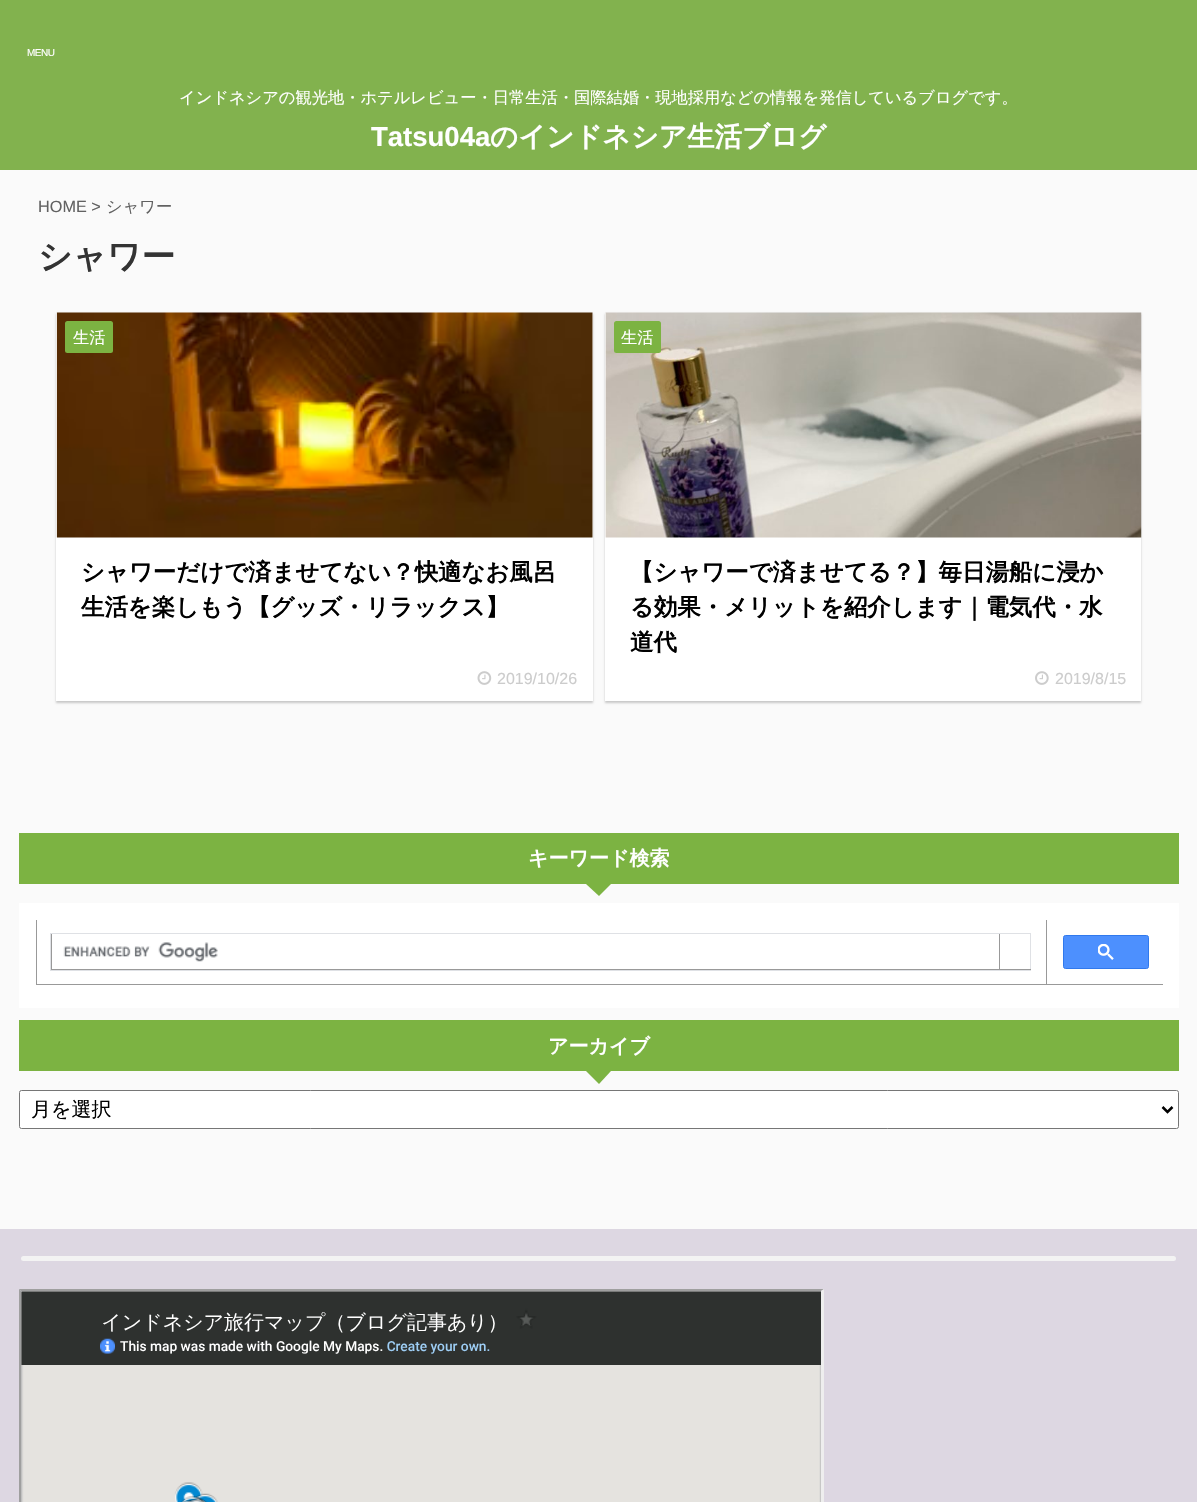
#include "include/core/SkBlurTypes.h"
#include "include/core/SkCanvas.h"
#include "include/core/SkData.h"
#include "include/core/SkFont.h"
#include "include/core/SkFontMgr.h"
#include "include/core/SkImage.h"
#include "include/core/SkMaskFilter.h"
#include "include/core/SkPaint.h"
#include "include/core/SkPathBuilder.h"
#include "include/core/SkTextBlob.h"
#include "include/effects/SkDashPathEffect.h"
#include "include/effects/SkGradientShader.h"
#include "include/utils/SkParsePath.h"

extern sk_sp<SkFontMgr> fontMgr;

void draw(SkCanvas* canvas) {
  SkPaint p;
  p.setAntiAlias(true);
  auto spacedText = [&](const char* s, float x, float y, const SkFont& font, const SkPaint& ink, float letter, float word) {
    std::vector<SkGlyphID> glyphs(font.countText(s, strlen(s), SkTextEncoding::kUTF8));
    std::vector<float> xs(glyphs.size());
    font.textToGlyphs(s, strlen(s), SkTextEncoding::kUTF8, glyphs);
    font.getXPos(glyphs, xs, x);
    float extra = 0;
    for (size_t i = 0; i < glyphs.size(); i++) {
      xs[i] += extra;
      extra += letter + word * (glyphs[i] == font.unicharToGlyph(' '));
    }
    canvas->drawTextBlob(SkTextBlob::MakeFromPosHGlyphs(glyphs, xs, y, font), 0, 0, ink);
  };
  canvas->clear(SkColorSetRGB(250, 250, 250));
  p.setColor(SkColorSetRGB(130, 178, 78));
  canvas->drawRect(SkRect::MakeLTRB(0, 0, 1197, 170), p);
  p.setColor(SkColorSetARGB(51, 0, 0, 0));
  p.setMaskFilter(SkMaskFilter::MakeBlur(kNormal_SkBlurStyle, 1));
  canvas->drawRect(SkRect::MakeLTRB(56, 314, 593, 703), p);
  p.setMaskFilter(nullptr);
  p.setColor(SK_ColorWHITE);
  canvas->drawRect(SkRect::MakeLTRB(56, 313, 593, 701), p);
  canvas->drawImageRect(SkImages::DeferredFromEncodedData(SkData::MakeFromFileName("images/1.png")), SkRect::MakeLTRB(56, 312, 593, 538), SkSamplingOptions());
  p.setColor(SkColorSetRGB(124, 179, 66));
  canvas->drawRoundRect(SkRect::MakeLTRB(65, 321, 113, 353), 2.5f, 2.5f, p);
  canvas->drawImageRect(SkImages::DeferredFromEncodedData(SkData::MakeFromFileName("images/2.png")), SkRect::MakeLTRB(477, 671, 492, 685), SkSamplingOptions());
  p.setColor(SkColorSetARGB(51, 0, 0, 0));
  p.setMaskFilter(SkMaskFilter::MakeBlur(kNormal_SkBlurStyle, 1));
  canvas->drawRect(SkRect::MakeLTRB(605, 314, 1141, 703), p);
  p.setMaskFilter(nullptr);
  p.setColor(SK_ColorWHITE);
  canvas->drawRect(SkRect::MakeLTRB(605, 313, 1141, 701), p);
  canvas->drawImageRect(SkImages::DeferredFromEncodedData(SkData::MakeFromFileName("images/3.png")), SkRect::MakeLTRB(605, 312, 1142, 538), SkSamplingOptions());
  p.setColor(SkColorSetRGB(124, 179, 66));
  canvas->drawRoundRect(SkRect::MakeLTRB(614, 321, 661, 353), 2.5f, 2.5f, p);
  canvas->drawImageRect(SkImages::DeferredFromEncodedData(SkData::MakeFromFileName("images/4.png")), SkRect::MakeLTRB(1035, 671, 1049, 685), SkSamplingOptions());
  canvas->drawRect(SkRect::MakeLTRB(19, 833, 1179, 884), p);
  canvas->drawPath(SkPathBuilder().moveTo(586, 884).lineTo(611, 884).lineTo(599, 896).close().detach(), p);
  p.setColor(SK_ColorWHITE);
  canvas->drawRect(SkRect::MakeLTRB(19, 903, 1179, 1008), p);
  p.setColor(SkColorSetRGB(153, 153, 153));
  canvas->drawRect(SkRect::MakeLTRB(1046, 984, 1163, 985), p);
  canvas->drawRect(SkRect::MakeLTRB(1046, 920, 1047, 985), p);
  canvas->drawRect(SkRect::MakeLTRB(36, 984, 1048, 985), p);
  canvas->drawRect(SkRect::MakeLTRB(36, 920, 37, 985), p);
  p.setStyle(SkPaint::kStroke_Style);
  p.setStrokeWidth(1);
  p.setColor(SkColorSetRGB(223, 225, 229));
  canvas->drawRect(SkRect::MakeLTRB(50.5f, 933.5f, 1030.5f, 970.5f), p);
  p.setStyle(SkPaint::kFill_Style);
  p.setColor(SkColorSetRGB(153, 153, 153));
  canvas->drawRect(SkRect::MakeLTRB(999, 969, 1031, 970), p);
  canvas->drawRect(SkRect::MakeLTRB(999, 934, 1000, 970), p);
  canvas->drawRect(SkRect::MakeLTRB(51, 969, 1000, 970), p);
  canvas->drawRect(SkRect::MakeLTRB(51, 934, 52, 970), p);
  canvas->drawImageRect(SkImages::DeferredFromEncodedData(SkData::MakeFromFileName("images/5.png")), SkRect::MakeLTRB(63, 942, 218, 962), SkSamplingOptions());
  p.setColor(SkColorSetRGB(77, 144, 254));
  canvas->drawRoundRect(SkRect::MakeLTRB(1063.5f, 935.5f, 1148.5f, 968.5f), 2, 2, p);
  p.setStyle(SkPaint::kStroke_Style);
  p.setColor(SkColorSetRGB(48, 121, 237));
  canvas->drawRoundRect(SkRect::MakeLTRB(1063.5f, 935.5f, 1148.5f, 968.5f), 2, 2, p);
  canvas->drawImageRect(SkImages::DeferredFromEncodedData(SkData::MakeFromFileName("images/6.png")), SkRect::MakeLTRB(1098, 944, 1114, 960), SkSamplingOptions());
  p.setStyle(SkPaint::kFill_Style);
  p.setColor(SkColorSetRGB(124, 179, 66));
  canvas->drawRect(SkRect::MakeLTRB(19, 1020, 1179, 1071), p);
  canvas->drawPath(SkPathBuilder().moveTo(586, 1071).lineTo(611, 1071).lineTo(599, 1084).close().detach(), p);
  p.setColor(SK_ColorWHITE);
  canvas->drawRoundRect(SkRect::MakeLTRB(19.5f, 1090.5f, 1178.5f, 1128.5f), 2, 2, p);
  p.setStyle(SkPaint::kStroke_Style);
  p.setColor(SkColorSetRGB(118, 118, 118));
  canvas->drawRoundRect(SkRect::MakeLTRB(19.5f, 1090.5f, 1178.5f, 1128.5f), 2, 2, p);
  p.setStrokeWidth(2.5f);
  p.setColor(SK_ColorBLACK);
  canvas->drawPath(SkPathBuilder().moveTo(1162.5f, 1107).lineTo(1167.5f, 1112).lineTo(1172.5f, 1107).detach(), p);
  p.setStyle(SkPaint::kFill_Style);
  p.setColor(SkColorSetRGB(221, 215, 226));
  canvas->drawRect(SkRect::MakeLTRB(0, 1229, 1197, 1502), p);
  p.setColor(SkColorSetRGB(243, 243, 243));
  canvas->drawRoundRect(SkRect::MakeLTRB(21, 1256, 1176, 1261), 2.5f, 2.5f, p);
  p.setColor(SkColorSetRGB(159, 159, 159));
  canvas->drawPath(SkPathBuilder().moveTo(19, 1289).lineTo(824, 1289).lineTo(821, 1291).lineTo(21, 1291).close().detach(), p);
  canvas->drawPath(SkPathBuilder().moveTo(19, 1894).lineTo(19, 1289).lineTo(21, 1291).lineTo(21, 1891).close().detach(), p);
  canvas->drawImageRect(SkImages::DeferredFromEncodedData(SkData::MakeFromFileName("images/7.png")), SkRect::MakeLTRB(21, 1291, 821, 1502), SkSamplingOptions());
  p.setColor(SkColorSetRGB(238, 238, 238));
  canvas->drawPath(SkPathBuilder().moveTo(824, 1289).lineTo(824, 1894).lineTo(821, 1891).lineTo(821, 1291).close().detach(), p);
  SkFont font1(fontMgr->matchFamilyStyle("Liberation Sans", SkFontStyle::Normal()), 10);
  font1.setSubpixel(true);
  p.setColor(SK_ColorWHITE);
  spacedText("MENU", 27, 56, font1, p, -0.5f, 0);
  SkFont font2(fontMgr->matchFamilyStyle("WenQuanYi Zen Hei", SkFontStyle(500, SkFontStyle::kNormal_Width, SkFontStyle::kUpright_Slant)), 16.25f);
  font2.setSubpixel(true);
  canvas->drawString("インドネシアの観光地・ホテルレビュー・日常生活・国際結婚・現地採用などの情報を発信しているブログです。", 179, 103, font2, p);
  SkFont font3(fontMgr->matchFamilyStyle("Liberation Sans", SkFontStyle::Bold()), 27.5f);
  font3.setSubpixel(true);
  canvas->drawString("Tatsu04a", 371, 146, font3, p);
  SkFont font4(fontMgr->matchFamilyStyle("WenQuanYi Zen Hei", SkFontStyle::Bold()), 27.5f);
  font4.setSubpixel(true);
  canvas->drawString("のインドネシア生活ブログ", 490, 146, font4, p);
  SkFont font5(fontMgr->matchFamilyStyle("Liberation Sans", SkFontStyle::Normal()), 16.25f);
  font5.setSubpixel(true);
  p.setColor(SkColorSetRGB(97, 97, 97));
  canvas->drawString("HOME >", 38, 212, font5, p);
  canvas->drawString("シャワー", 106, 212, font2, p);
  SkFont font6(fontMgr->matchFamilyStyle("WenQuanYi Zen Hei", SkFontStyle::Bold()), 33.75f);
  font6.setSubpixel(true);
  p.setColor(SkColorSetRGB(51, 51, 51));
  canvas->drawString("シャワー", 38, 268, font6, p);
  p.setColor(SK_ColorWHITE);
  canvas->drawString("生活", 73, 343, font2, p);
  SkFont font7(fontMgr->matchFamilyStyle("WenQuanYi Zen Hei", SkFontStyle::Bold()), 23.4f);
  font7.setSubpixel(true);
  p.setColor(SK_ColorBLACK);
  canvas->drawString("シャワーだけで済ませてない？快適なお風呂", 81, 580, font7, p);
  canvas->drawString("生活を楽しもう【グッズ・リラックス】", 81, 615, font7, p);
  SkFont font8(fontMgr->matchFamilyStyle("Liberation Sans", SkFontStyle::Normal()), 16);
  font8.setSubpixel(true);
  p.setColor(SkColorSetRGB(204, 204, 204));
  canvas->drawString("2019/10/26", 497, 684, font8, p);
  p.setColor(SK_ColorWHITE);
  canvas->drawString("生活", 621, 343, font2, p);
  p.setColor(SK_ColorBLACK);
  canvas->drawString("【シャワーで済ませてる？】毎日湯船に浸か", 630, 580, font7, p);
  canvas->drawString("る効果・メリットを紹介します｜電気代・水", 630, 615, font7, p);
  canvas->drawString("道代", 630, 650, font7, p);
  p.setColor(SkColorSetRGB(204, 204, 204));
  canvas->drawString("2019/8/15", 1055, 684, font8, p);
  SkFont font9(fontMgr->matchFamilyStyle("WenQuanYi Zen Hei", SkFontStyle::Bold()), 20);
  font9.setSubpixel(true);
  p.setColor(SK_ColorWHITE);
  canvas->drawString("キーワード検索", 528, 865, font9, p);
  canvas->drawString("アーカイブ", 548, 1053, font9, p);
  SkFont font10(fontMgr->matchFamilyStyle("WenQuanYi Zen Hei", SkFontStyle(500, SkFontStyle::kNormal_Width, SkFontStyle::kUpright_Slant)), 20);
  font10.setSubpixel(true);
  p.setColor(SK_ColorBLACK);
  canvas->drawString("月を選択", 31, 1116, font10, p);
}
